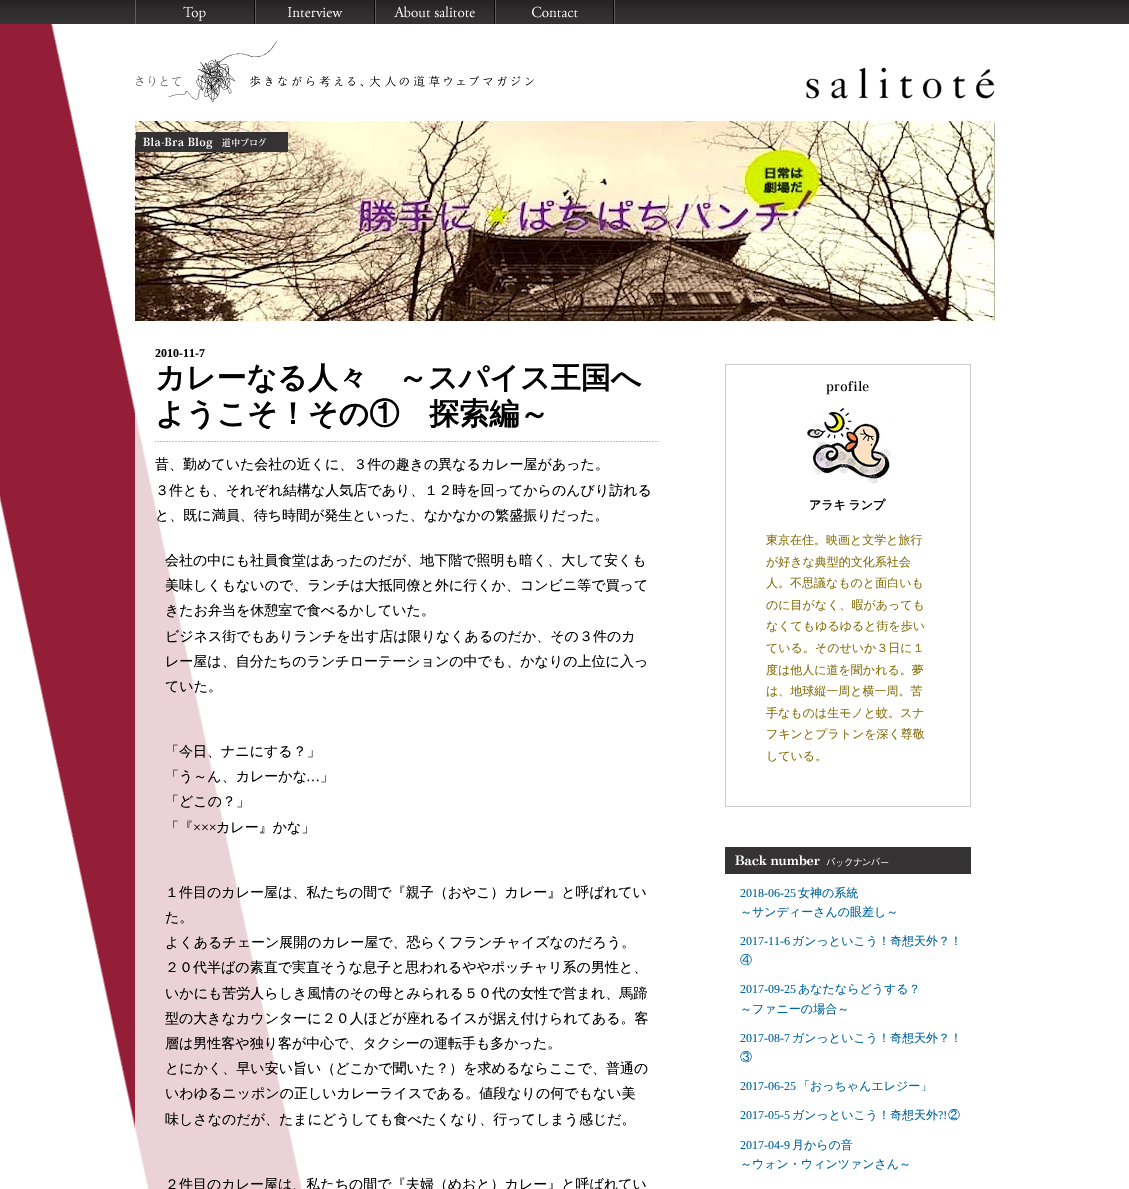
#include "include/core/SkBlurTypes.h"
#include "include/core/SkCanvas.h"
#include "include/core/SkData.h"
#include "include/core/SkFont.h"
#include "include/core/SkFontMgr.h"
#include "include/core/SkImage.h"
#include "include/core/SkMaskFilter.h"
#include "include/core/SkPaint.h"
#include "include/core/SkPathBuilder.h"
#include "include/core/SkTextBlob.h"
#include "include/effects/SkDashPathEffect.h"
#include "include/effects/SkGradientShader.h"
#include "include/utils/SkParsePath.h"

extern sk_sp<SkFontMgr> fontMgr;

void draw(SkCanvas* canvas) {
  SkPaint p;
  p.setAntiAlias(true);
  auto spacedText = [&](const char* s, float x, float y, const SkFont& font, const SkPaint& ink, float letter, float word) {
    std::vector<SkGlyphID> glyphs(font.countText(s, strlen(s), SkTextEncoding::kUTF8));
    std::vector<float> xs(glyphs.size());
    font.textToGlyphs(s, strlen(s), SkTextEncoding::kUTF8, glyphs);
    font.getXPos(glyphs, xs, x);
    float extra = 0;
    for (size_t i = 0; i < glyphs.size(); i++) {
      xs[i] += extra;
      extra += letter + word * (glyphs[i] == font.unicharToGlyph(' '));
    }
    canvas->drawTextBlob(SkTextBlob::MakeFromPosHGlyphs(glyphs, xs, y, font), 0, 0, ink);
  };
  canvas->clear(SK_ColorWHITE);
  canvas->drawImageRect(SkImages::DeferredFromEncodedData(SkData::MakeFromFileName("images/1.png")), SkRect::MakeLTRB(0, 24, 303, 1189), SkSamplingOptions());
  canvas->drawImageRect(SkImages::DeferredFromEncodedData(SkData::MakeFromFileName("images/2.png")), SkRect::MakeLTRB(0, 0, 1129, 24), SkSamplingOptions());
  canvas->drawImageRect(SkImages::DeferredFromEncodedData(SkData::MakeFromFileName("images/3.png")), SkRect::MakeLTRB(135, 0, 255, 24), SkSamplingOptions());
  canvas->drawImageRect(SkImages::DeferredFromEncodedData(SkData::MakeFromFileName("images/4.png")), SkRect::MakeLTRB(255, 0, 375, 24), SkSamplingOptions());
  canvas->drawImageRect(SkImages::DeferredFromEncodedData(SkData::MakeFromFileName("images/5.png")), SkRect::MakeLTRB(375, 0, 495, 24), SkSamplingOptions());
  canvas->drawImageRect(SkImages::DeferredFromEncodedData(SkData::MakeFromFileName("images/6.png")), SkRect::MakeLTRB(495, 0, 615, 24), SkSamplingOptions());
  canvas->drawImageRect(SkImages::DeferredFromEncodedData(SkData::MakeFromFileName("images/7.png")), SkRect::MakeLTRB(136, 41, 995, 103), SkSamplingOptions());
  canvas->drawImageRect(SkImages::DeferredFromEncodedData(SkData::MakeFromFileName("images/8.png")), SkRect::MakeLTRB(135, 121, 995, 321), SkSamplingOptions());
  p.setColor(SkColorSetARGB(204, 255, 255, 255));
  canvas->drawRect(SkRect::MakeLTRB(135, 410, 303, 1189), p);
  canvas->drawImageRect(SkImages::DeferredFromEncodedData(SkData::MakeFromFileName("images/9.png")), SkRect::MakeLTRB(155, 441, 659, 442), SkSamplingOptions());
  canvas->drawImageRect(SkImages::DeferredFromEncodedData(SkData::MakeFromFileName("images/10.png")), SkRect::MakeLTRB(826, 381, 869, 395), SkSamplingOptions());
  p.setStyle(SkPaint::kStroke_Style);
  p.setStrokeWidth(1);
  p.setColor(SkColorSetRGB(204, 204, 204));
  canvas->drawRect(SkRect::MakeLTRB(725.5f, 364.5f, 970.5f, 806.5f), p);
  canvas->drawImageRect(SkImages::DeferredFromEncodedData(SkData::MakeFromFileName("images/11.png")), SkRect::MakeLTRB(806, 408, 891, 484), SkSamplingOptions());
  canvas->drawImageRect(SkImages::DeferredFromEncodedData(SkData::MakeFromFileName("images/12.png")), SkRect::MakeLTRB(725, 847, 971, 874), SkSamplingOptions());
  SkFont font1(fontMgr->matchFamilyStyle("Liberation Serif", SkFontStyle::Bold()), 12);
  font1.setSubpixel(true);
  p.setStyle(SkPaint::kFill_Style);
  p.setColor(SK_ColorBLACK);
  canvas->drawString("2010-11-7", 155, 357, font1, p);
  SkFont font2(fontMgr->matchFamilyStyle("WenQuanYi Zen Hei", SkFontStyle::Bold()), 30);
  font2.setSubpixel(true);
  canvas->drawString("カレーなる人々　～スパイス王国へ", 155, 388, font2, p);
  canvas->drawString("ようこそ！その①　探索編～", 155, 424, font2, p);
  SkFont font3(fontMgr->matchFamilyStyle("WenQuanYi Zen Hei", SkFontStyle(500, SkFontStyle::kNormal_Width, SkFontStyle::kUpright_Slant)), 14);
  font3.setSubpixel(true);
  canvas->drawString("昔、勤めていた会社の近くに、３件の趣きの異なるカレー屋があった。", 155, 469, font3, p);
  canvas->drawString("３件とも、それぞれ結構な人気店であり、１２時を回ってからのんびり訪れる", 155, 495, font3, p);
  canvas->drawString("と、既に満員、待ち時間が発生といった、なかなかの繁盛振りだった。", 155, 520, font3, p);
  canvas->drawString("会社の中にも社員食堂はあったのだが、地下階で照明も暗く、大して安くも", 165, 565, font3, p);
  canvas->drawString("美味しくもないので、ランチは大抵同僚と外に行くか、コンビニ等で買って", 165, 590, font3, p);
  canvas->drawString("きたお弁当を休憩室で食べるかしていた。", 165, 615, font3, p);
  canvas->drawString("ビジネス街でもありランチを出す店は限りなくあるのだか、その３件のカ", 165, 641, font3, p);
  canvas->drawString("レー屋は、自分たちのランチローテーションの中でも、かなりの上位に入っ", 165, 666, font3, p);
  canvas->drawString("ていた。", 165, 691, font3, p);
  canvas->drawString("「今日、ナニにする？」", 165, 756, font3, p);
  canvas->drawString("「う～ん、カレーかな", 165, 781, font3, p);
  SkFont font4(fontMgr->matchFamilyStyle("Liberation Serif", SkFontStyle::Normal()), 14);
  font4.setSubpixel(true);
  canvas->drawString("…", 306, 781, font4, p);
  canvas->drawString("」", 320, 781, font3, p);
  canvas->drawString("「どこの？」", 165, 806, font3, p);
  canvas->drawString("「『", 165, 832, font3, p);
  canvas->drawString("×××", 193, 832, font4, p);
  canvas->drawString("カレー』かな」", 216, 832, font3, p);
  canvas->drawString("１件目のカレー屋は、私たちの間で『親子（おやこ）カレー』と呼ばれてい", 165, 897, font3, p);
  canvas->drawString("た。", 165, 922, font3, p);
  canvas->drawString("よくあるチェーン展開のカレー屋で、恐らくフランチャイズなのだろう。", 165, 947, font3, p);
  canvas->drawString("２０代半ばの素直で実直そうな息子と思われるややポッチャリ系の男性と、", 165, 972, font3, p);
  canvas->drawString("いかにも苦労人らしき風情のその母とみられる５０代の女性で営まれ、馬蹄", 165, 998, font3, p);
  canvas->drawString("型の大きなカウンターに２０人ほどが座れるイスが据え付けられてある。客", 165, 1023, font3, p);
  canvas->drawString("層は男性客や独り客が中心で、タクシーの運転手も多かった。", 165, 1048, font3, p);
  canvas->drawString("とにかく、早い安い旨い（どこかで聞いた？）を求めるならここで、普通の", 165, 1073, font3, p);
  canvas->drawString("いわゆるニッポンの正しいカレーライスである。値段なりの何でもない美", 165, 1098, font3, p);
  canvas->drawString("味しさなのだが、たまにどうしても食べたくなり、行ってしまう感じだ。", 165, 1124, font3, p);
  canvas->drawString("２件目のカレー屋は、私たちの間で『夫婦（めおと）カレー』と呼ばれてい", 165, 1189, font3, p);
  SkFont font5(fontMgr->matchFamilyStyle("WenQuanYi Zen Hei", SkFontStyle::Bold()), 12);
  font5.setSubpixel(true);
  spacedText("アラキ ランプ", 809, 509, font5, p, 0, -1);
  SkFont font6(fontMgr->matchFamilyStyle("WenQuanYi Zen Hei", SkFontStyle(500, SkFontStyle::kNormal_Width, SkFontStyle::kUpright_Slant)), 12);
  font6.setSubpixel(true);
  p.setColor(SkColorSetRGB(135, 112, 12));
  canvas->drawString("東京在住。映画と文学と旅行", 766, 544, font6, p);
  canvas->drawString("が好きな典型的文化系社会", 766, 566, font6, p);
  canvas->drawString("人。不思議なものと面白いも", 766, 587, font6, p);
  canvas->drawString("のに目がなく、暇があっても", 766, 609, font6, p);
  canvas->drawString("なくてもゆるゆると街を歩い", 766, 630, font6, p);
  canvas->drawString("ている。そのせいか３日に１", 766, 652, font6, p);
  canvas->drawString("度は他人に道を聞かれる。夢", 766, 674, font6, p);
  canvas->drawString("は、地球縦一周と横一周。苦", 766, 695, font6, p);
  canvas->drawString("手なものは生モノと蚊。スナ", 766, 717, font6, p);
  canvas->drawString("フキンとプラトンを深く尊敬", 766, 738, font6, p);
  canvas->drawString("している。", 766, 760, font6, p);
  SkFont font7(fontMgr->matchFamilyStyle("Liberation Serif", SkFontStyle::Normal()), 12);
  font7.setSubpixel(true);
  p.setColor(SkColorSetRGB(0, 100, 156));
  canvas->drawString("2018-06-25", 740, 897, font7, p);
  canvas->drawString("女神の系統", 798, 897, font6, p);
  canvas->drawString("～サンディーさんの眼差し～", 740, 916, font6, p);
  canvas->drawString("2017-11-6", 740, 945, font7, p);
  canvas->drawString("ガンっといこう！奇想天外？！", 792, 945, font6, p);
  canvas->drawString("④", 740, 964, font6, p);
  canvas->drawString("2017-09-25", 740, 993, font7, p);
  canvas->drawString("あなたならどうする？", 798, 993, font6, p);
  canvas->drawString("～ファニーの場合～", 740, 1013, font6, p);
  canvas->drawString("2017-08-7", 740, 1042, font7, p);
  canvas->drawString("ガンっといこう！奇想天外？！", 792, 1042, font6, p);
  canvas->drawString("③", 740, 1061, font6, p);
  canvas->drawString("2017-06-25", 740, 1090, font7, p);
  canvas->drawString("「おっちゃんエレジー」", 798, 1090, font6, p);
  canvas->drawString("2017-05-5", 740, 1119, font7, p);
  canvas->drawString("ガンっといこう！奇想天外", 792, 1119, font6, p);
  canvas->drawString("?!", 938, 1119, font7, p);
  canvas->drawString("②", 948, 1119, font6, p);
  canvas->drawString("2017-04-9", 740, 1149, font7, p);
  canvas->drawString("月からの音", 792, 1149, font6, p);
  canvas->drawString("～ウォン・ウィンツァンさん～", 740, 1168, font6, p);
}
